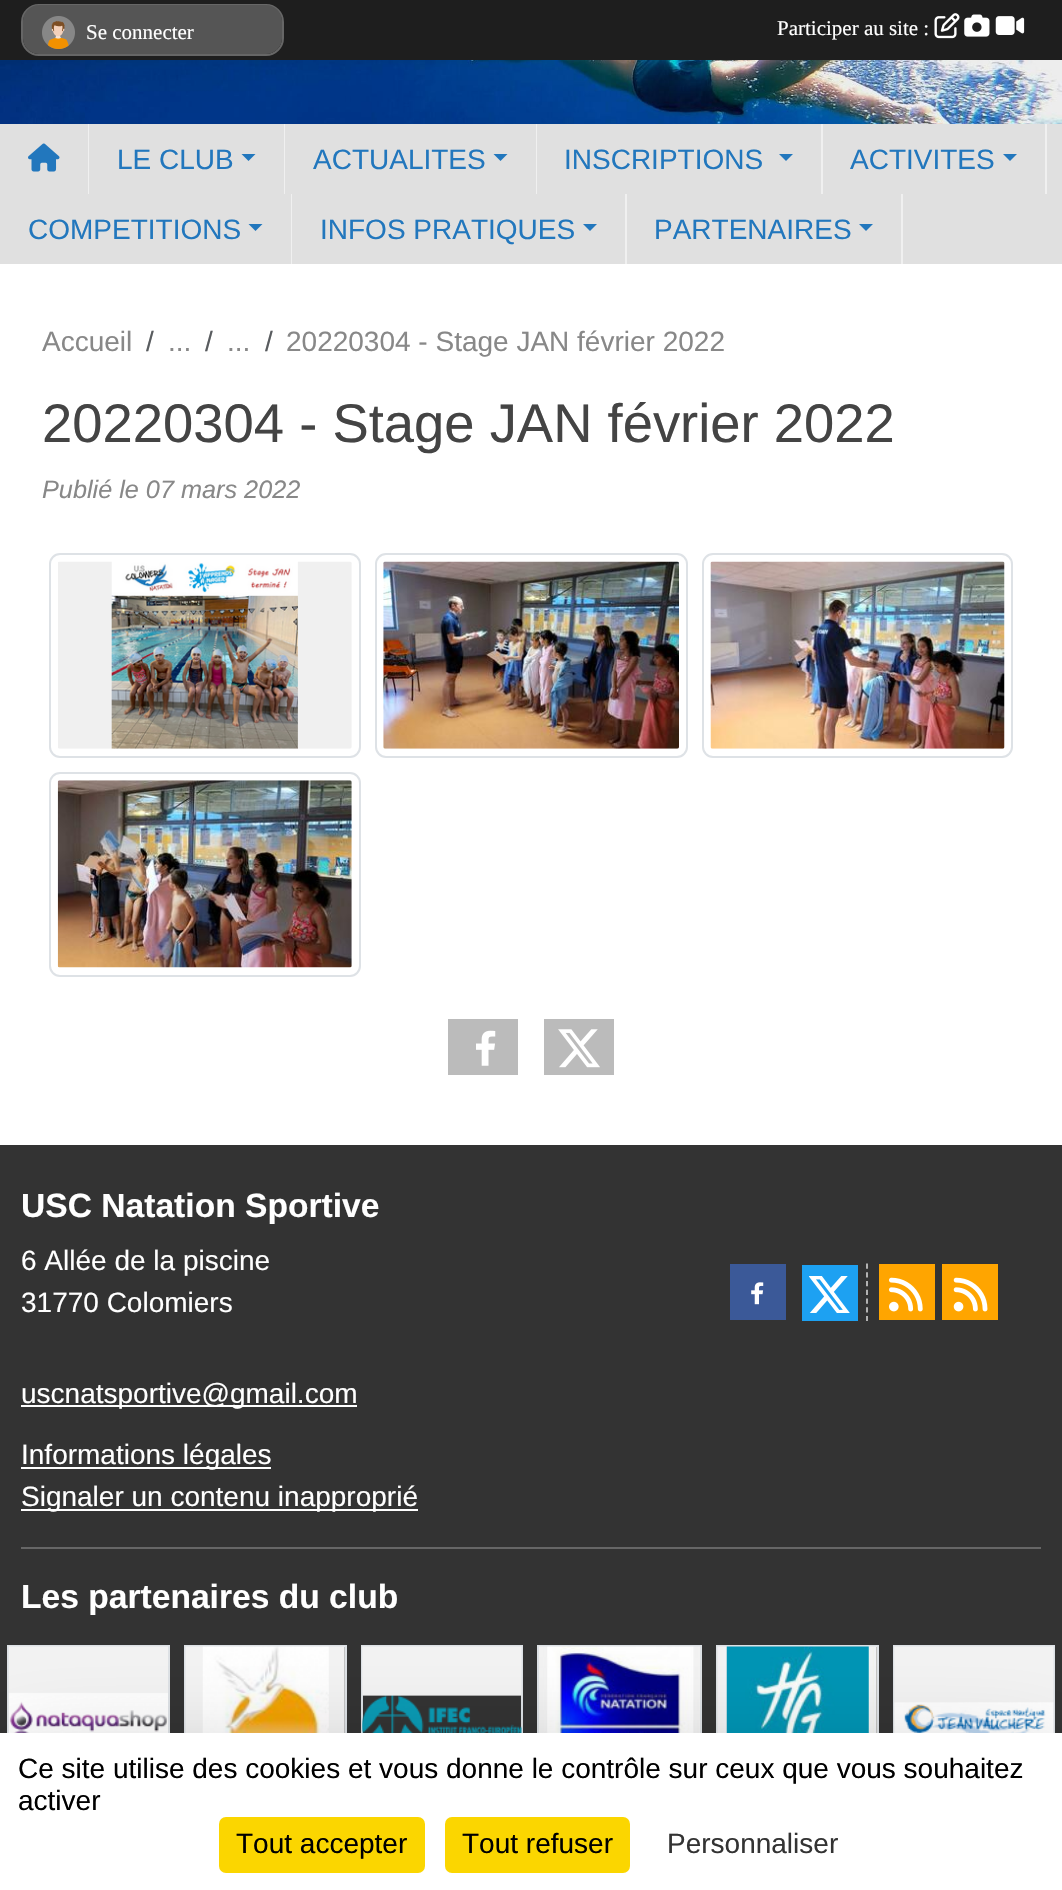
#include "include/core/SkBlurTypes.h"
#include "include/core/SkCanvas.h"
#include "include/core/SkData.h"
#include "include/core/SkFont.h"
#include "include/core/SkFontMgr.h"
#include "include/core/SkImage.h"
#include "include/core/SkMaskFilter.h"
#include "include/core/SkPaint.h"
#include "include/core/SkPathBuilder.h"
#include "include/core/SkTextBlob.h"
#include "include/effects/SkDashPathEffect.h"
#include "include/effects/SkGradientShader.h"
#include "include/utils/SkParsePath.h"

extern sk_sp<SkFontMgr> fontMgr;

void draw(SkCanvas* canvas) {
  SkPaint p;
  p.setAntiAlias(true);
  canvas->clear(SK_ColorWHITE);
  p.setColor(SkColorSetRGB(30, 30, 30));
  canvas->drawRect(SkRect::MakeLTRB(0, 0, 1062, 60), p);
  p.setStyle(SkPaint::kStroke_Style);
  p.setStrokeWidth(2);
  p.setColor(SkColorSetRGB(102, 102, 102));
  canvas->drawRoundRect(SkRect::MakeLTRB(22, 5, 283, 55), 17, 17, p);
  p.setStyle(SkPaint::kFill_Style);
  p.setColor(SkColorSetRGB(85, 85, 85));
  canvas->drawRoundRect(SkRect::MakeLTRB(23, 5, 282, 54), 16, 16, p);
  canvas->drawImageRect(SkImages::DeferredFromEncodedData(SkData::MakeFromFileName("images/1.png")), SkRect::MakeLTRB(42, 16, 75, 49), SkSamplingOptions());
  canvas->drawImageRect(SkImages::DeferredFromEncodedData(SkData::MakeFromFileName("images/2.png")), SkRect::MakeLTRB(934, 13, 960, 39), SkSamplingOptions());
  canvas->drawImageRect(SkImages::DeferredFromEncodedData(SkData::MakeFromFileName("images/3.png")), SkRect::MakeLTRB(964, 14, 990, 37), SkSamplingOptions());
  canvas->drawImageRect(SkImages::DeferredFromEncodedData(SkData::MakeFromFileName("images/4.png")), SkRect::MakeLTRB(995, 16, 1025, 35), SkSamplingOptions());
  canvas->drawImageRect(SkImages::DeferredFromEncodedData(SkData::MakeFromFileName("images/5.png")), SkRect::MakeLTRB(0, 60, 1062, 124), SkSamplingOptions());
  p.setColor(SkColorSetRGB(224, 224, 224));
  canvas->drawRect(SkRect::MakeLTRB(0, 124, 1062, 264), p);
  p.setColor(SkColorSetRGB(240, 240, 240));
  canvas->drawRect(SkRect::MakeLTRB(88, 124, 89, 194), p);
  canvas->drawImageRect(SkImages::DeferredFromEncodedData(SkData::MakeFromFileName("images/6.png")), SkRect::MakeLTRB(28, 143, 60, 172), SkSamplingOptions());
  canvas->drawRect(SkRect::MakeLTRB(284, 124, 285, 194), p);
  p.setColor(SkColorSetRGB(34, 119, 189));
  canvas->drawPath(SkPathBuilder().moveTo(241.5f, 154).lineTo(255.5f, 154).lineTo(248.5f, 161).close().detach(), p);
  p.setColor(SkColorSetRGB(240, 240, 240));
  canvas->drawRect(SkRect::MakeLTRB(536, 124, 537, 194), p);
  p.setColor(SkColorSetRGB(34, 119, 189));
  canvas->drawPath(SkPathBuilder().moveTo(493.5f, 154).lineTo(507.5f, 154).lineTo(500.5f, 161).close().detach(), p);
  p.setColor(SkColorSetRGB(240, 240, 240));
  canvas->drawRect(SkRect::MakeLTRB(821, 124, 823, 194), p);
  p.setColor(SkColorSetRGB(34, 119, 189));
  canvas->drawPath(SkPathBuilder().moveTo(779, 154).lineTo(793, 154).lineTo(786, 161).close().detach(), p);
  p.setColor(SkColorSetRGB(240, 240, 240));
  canvas->drawRect(SkRect::MakeLTRB(1045, 124, 1047, 194), p);
  p.setColor(SkColorSetRGB(34, 119, 189));
  canvas->drawPath(SkPathBuilder().moveTo(1003, 154).lineTo(1017, 154).lineTo(1010, 161).close().detach(), p);
  p.setColor(SkColorSetRGB(240, 240, 240));
  canvas->drawRect(SkRect::MakeLTRB(291, 194, 292, 264), p);
  p.setColor(SkColorSetRGB(34, 119, 189));
  canvas->drawPath(SkPathBuilder().moveTo(248.5f, 224).lineTo(262.5f, 224).lineTo(255.5f, 231).close().detach(), p);
  p.setColor(SkColorSetRGB(240, 240, 240));
  canvas->drawRect(SkRect::MakeLTRB(625, 194, 627, 264), p);
  p.setColor(SkColorSetRGB(34, 119, 189));
  canvas->drawPath(SkPathBuilder().moveTo(583, 224).lineTo(597, 224).lineTo(590, 231).close().detach(), p);
  p.setColor(SkColorSetRGB(240, 240, 240));
  canvas->drawRect(SkRect::MakeLTRB(901, 194, 903, 264), p);
  p.setColor(SkColorSetRGB(34, 119, 189));
  canvas->drawPath(SkPathBuilder().moveTo(859, 224).lineTo(873, 224).lineTo(866, 231).close().detach(), p);
  p.setStyle(SkPaint::kStroke_Style);
  p.setColor(SkColorSetRGB(222, 226, 230));
  canvas->drawRoundRect(SkRect::MakeLTRB(50, 554, 360, 757), 10, 10, p);
  canvas->drawImageRect(SkImages::DeferredFromEncodedData(SkData::MakeFromFileName("images/7.png")), SkRect::MakeLTRB(58, 561, 352, 749), SkSamplingOptions());
  canvas->drawRoundRect(SkRect::MakeLTRB(376, 554, 687, 757), 10, 10, p);
  canvas->drawImageRect(SkImages::DeferredFromEncodedData(SkData::MakeFromFileName("images/8.png")), SkRect::MakeLTRB(383, 561, 679, 749), SkSamplingOptions());
  canvas->drawRoundRect(SkRect::MakeLTRB(703, 554, 1012, 757), 10, 10, p);
  canvas->drawImageRect(SkImages::DeferredFromEncodedData(SkData::MakeFromFileName("images/9.png")), SkRect::MakeLTRB(710, 561, 1005, 749), SkSamplingOptions());
  canvas->drawRoundRect(SkRect::MakeLTRB(50, 773, 360, 976), 10, 10, p);
  canvas->drawImageRect(SkImages::DeferredFromEncodedData(SkData::MakeFromFileName("images/10.png")), SkRect::MakeLTRB(57, 780, 352, 968), SkSamplingOptions());
  p.setStyle(SkPaint::kFill_Style);
  p.setColor(SkColorSetRGB(187, 187, 187));
  canvas->drawRect(SkRect::MakeLTRB(448, 1019, 518, 1075), p);
  canvas->drawImageRect(SkImages::DeferredFromEncodedData(SkData::MakeFromFileName("images/11.png")), SkRect::MakeLTRB(476, 1030, 496, 1066), SkSamplingOptions());
  canvas->drawRect(SkRect::MakeLTRB(544, 1019, 614, 1075), p);
  canvas->drawImageRect(SkImages::DeferredFromEncodedData(SkData::MakeFromFileName("images/12.png")), SkRect::MakeLTRB(558, 1029, 600, 1068), SkSamplingOptions());
  p.setColor(SkColorSetRGB(51, 51, 51));
  canvas->drawRect(SkRect::MakeLTRB(0, 1145, 1062, 1733), p);
  p.setColor(SK_ColorWHITE);
  canvas->drawRect(SkRect::MakeLTRB(21, 1405, 357, 1407), p);
  canvas->drawRect(SkRect::MakeLTRB(21, 1467, 271, 1469), p);
  canvas->drawRect(SkRect::MakeLTRB(21, 1509, 418, 1511), p);
  p.setColor(SkColorSetRGB(59, 89, 152));
  canvas->drawRect(SkRect::MakeLTRB(730, 1264, 786, 1320), p);
  canvas->drawImageRect(SkImages::DeferredFromEncodedData(SkData::MakeFromFileName("images/13.png")), SkRect::MakeLTRB(751, 1282, 764, 1305), SkSamplingOptions());
  p.setColor(SkColorSetRGB(29, 161, 242));
  canvas->drawRect(SkRect::MakeLTRB(802, 1265, 858, 1321), p);
  canvas->drawImageRect(SkImages::DeferredFromEncodedData(SkData::MakeFromFileName("images/14.png")), SkRect::MakeLTRB(809, 1276, 850, 1313), SkSamplingOptions());
  p.setStyle(SkPaint::kStroke_Style);
  p.setStrokeWidth(1.8f);
  p.setColor(SkColorSetRGB(192, 192, 192));
  p.setPathEffect(SkDashPathEffect::Make({{5.25f, 3.5f}}, 0));
  canvas->drawPath(SkPathBuilder().moveTo(867, 1263.5f).lineTo(867, 1321).detach(), p);
  p.setPathEffect(nullptr);
  p.setStyle(SkPaint::kFill_Style);
  p.setColor(SkColorSetRGB(255, 165, 0));
  canvas->drawRect(SkRect::MakeLTRB(879, 1264, 935, 1320), p);
  canvas->drawImageRect(SkImages::DeferredFromEncodedData(SkData::MakeFromFileName("images/15.png")), SkRect::MakeLTRB(889, 1277, 923, 1312), SkSamplingOptions());
  canvas->drawRect(SkRect::MakeLTRB(942, 1264, 998, 1320), p);
  canvas->drawImageRect(SkImages::DeferredFromEncodedData(SkData::MakeFromFileName("images/16.png")), SkRect::MakeLTRB(953, 1277, 988, 1312), SkSamplingOptions());
  p.setColor(SkColorSetRGB(102, 102, 102));
  canvas->drawRect(SkRect::MakeLTRB(21, 1547, 1041, 1549), p);
  p.setStyle(SkPaint::kStroke_Style);
  p.setStrokeWidth(2);
  p.setColor(SkColorSetRGB(222, 226, 230));
  canvas->drawRect(SkRect::MakeLTRB(8, 1646, 169, 1807), p);
  canvas->drawImageRect(SkImages::DeferredFromEncodedData(SkData::MakeFromFileName("images/17.png")), SkRect::MakeLTRB(8, 1646, 168, 1733), SkSamplingOptions());
  canvas->drawRect(SkRect::MakeLTRB(185, 1646, 346, 1807), p);
  canvas->drawImageRect(SkImages::DeferredFromEncodedData(SkData::MakeFromFileName("images/18.png")), SkRect::MakeLTRB(185, 1646, 345, 1733), SkSamplingOptions());
  canvas->drawRect(SkRect::MakeLTRB(362, 1646, 522, 1807), p);
  canvas->drawImageRect(SkImages::DeferredFromEncodedData(SkData::MakeFromFileName("images/19.png")), SkRect::MakeLTRB(362, 1646, 522, 1733), SkSamplingOptions());
  canvas->drawRect(SkRect::MakeLTRB(538, 1646, 701, 1807), p);
  canvas->drawImageRect(SkImages::DeferredFromEncodedData(SkData::MakeFromFileName("images/20.png")), SkRect::MakeLTRB(539, 1646, 700, 1733), SkSamplingOptions());
  canvas->drawRect(SkRect::MakeLTRB(717, 1646, 878, 1807), p);
  canvas->drawImageRect(SkImages::DeferredFromEncodedData(SkData::MakeFromFileName("images/21.png")), SkRect::MakeLTRB(717, 1646, 877, 1733), SkSamplingOptions());
  canvas->drawRect(SkRect::MakeLTRB(894, 1646, 1054, 1807), p);
  canvas->drawImageRect(SkImages::DeferredFromEncodedData(SkData::MakeFromFileName("images/22.png")), SkRect::MakeLTRB(894, 1646, 1054, 1733), SkSamplingOptions());
  p.setStyle(SkPaint::kFill_Style);
  p.setColor(SkColorSetARGB(64, 0, 0, 0));
  p.setMaskFilter(SkMaskFilter::MakeBlur(kNormal_SkBlurStyle, 52.5f));
  canvas->drawRect(SkRect::MakeLTRB(0, 1768, 1062, 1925), p);
  p.setMaskFilter(nullptr);
  p.setColor(SK_ColorWHITE);
  canvas->drawRect(SkRect::MakeLTRB(0, 1733, 1062, 1890), p);
  p.setColor(SkColorSetRGB(251, 214, 0));
  canvas->drawRoundRect(SkRect::MakeLTRB(219, 1817, 425, 1873), 7, 7, p);
  canvas->drawRoundRect(SkRect::MakeLTRB(445, 1817, 630, 1873), 7, 7, p);
  SkFont font1(fontMgr->matchFamilyStyle("Liberation Serif", SkFontStyle::Normal()), 21);
  font1.setSubpixel(true);
  p.setColor(SK_ColorWHITE);
  canvas->drawString("Se connecter", 86, 39, font1, p);
  canvas->drawString("Participer au site :", 777, 35, font1, p);
  SkFont font2(fontMgr->matchFamilyStyle("Liberation Sans", SkFontStyle::Normal()), 28);
  font2.setSubpixel(true);
  p.setColor(SkColorSetRGB(34, 119, 189));
  canvas->drawString("LE CLUB", 117, 169, font2, p);
  canvas->drawString("ACTUALITES", 313, 169, font2, p);
  canvas->drawString("INSCRIPTIONS", 564, 169, font2, p);
  canvas->drawString("ACTIVITES", 850, 169, font2, p);
  canvas->drawString("COMPETITIONS", 28, 239, font2, p);
  canvas->drawString("INFOS PRATIQUES", 320, 239, font2, p);
  canvas->drawString("PARTENAIRES", 654, 239, font2, p);
  p.setColor(SkColorSetRGB(136, 136, 136));
  canvas->drawString("Accueil", 42, 351, font2, p);
  p.setColor(SkColorSetRGB(89, 92, 95));
  canvas->drawString("/", 146, 351, font2, p);
  p.setColor(SkColorSetRGB(136, 136, 136));
  canvas->drawString("...", 168, 351, font2, p);
  p.setColor(SkColorSetRGB(89, 92, 95));
  canvas->drawString("/", 205, 351, font2, p);
  p.setColor(SkColorSetRGB(136, 136, 136));
  canvas->drawString("...", 227, 351, font2, p);
  p.setColor(SkColorSetRGB(89, 92, 95));
  canvas->drawString("/", 265, 351, font2, p);
  p.setColor(SkColorSetRGB(136, 136, 136));
  canvas->drawString("20220304 - Stage JAN février 2022", 286, 351, font2, p);
  SkFont font3(fontMgr->matchFamilyStyle("Liberation Sans", SkFontStyle::Normal()), 54.4f);
  font3.setSubpixel(true);
  p.setColor(SkColorSetRGB(68, 68, 68));
  canvas->drawString("20220304 - Stage JAN février 2022", 42, 442, font3, p);
  SkFont font4(fontMgr->matchFamilyStyle("Liberation Sans", SkFontStyle::Italic()), 25.25f);
  font4.setSubpixel(true);
  p.setColor(SkColorSetRGB(136, 136, 136));
  canvas->drawString("Publié le 07 mars 2022", 42, 498, font4, p);
  SkFont font5(fontMgr->matchFamilyStyle("Liberation Sans", SkFontStyle::Bold()), 33.6f);
  font5.setSubpixel(true);
  p.setColor(SK_ColorWHITE);
  canvas->drawString("USC Natation Sportive", 21, 1217, font5, p);
  canvas->drawString("6 Allée de la piscine", 21, 1270, font2, p);
  canvas->drawString("31770 Colomiers", 21, 1312, font2, p);
  canvas->drawString("uscnatsportive@gmail.com", 21, 1403, font2, p);
  canvas->drawString("Informations légales", 21, 1464, font2, p);
  canvas->drawString("Signaler un contenu inapproprié", 21, 1506, font2, p);
  canvas->drawString("Les partenaires du club", 21, 1608, font5, p);
  p.setColor(SK_ColorBLACK);
  canvas->drawString("Ce site utilise des cookies et vous donne le contrôle sur ceux que vous souhaitez", 18, 1778, font2, p);
  canvas->drawString("activer", 18, 1810, font2, p);
  canvas->drawString("Tout accepter", 236, 1853, font2, p);
  canvas->drawString("Tout refuser", 462, 1853, font2, p);
  p.setColor(SkColorSetRGB(51, 51, 51));
  canvas->drawString("Personnaliser", 667, 1853, font2, p);
}
